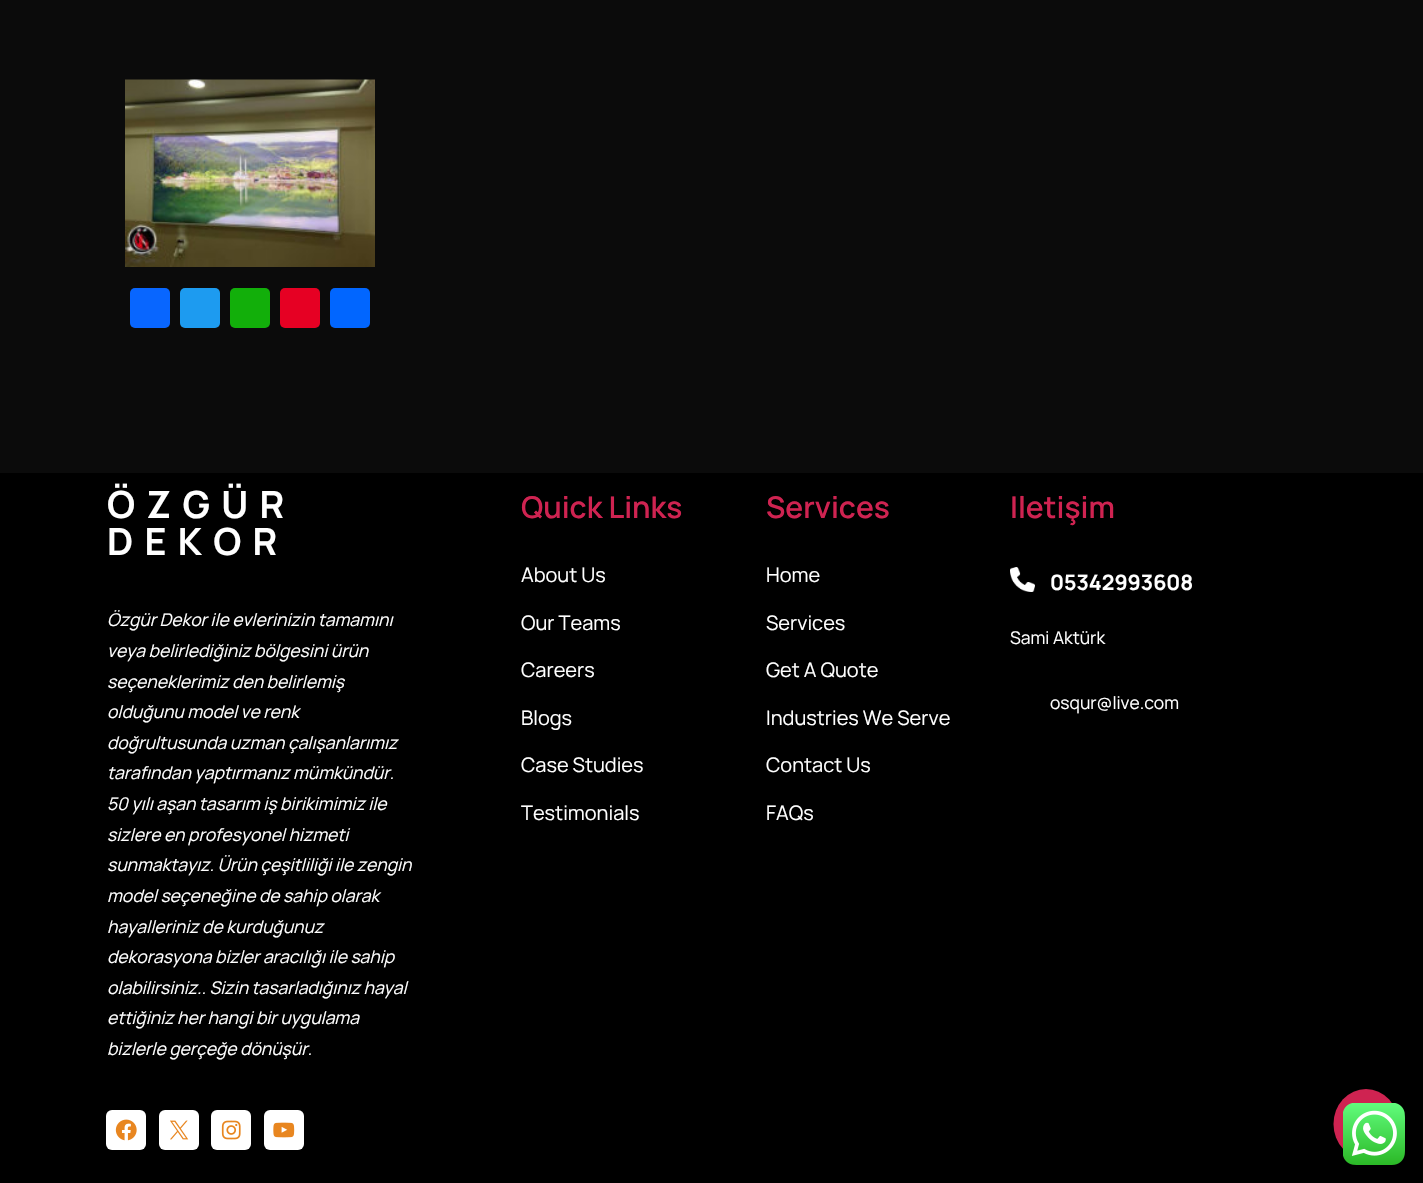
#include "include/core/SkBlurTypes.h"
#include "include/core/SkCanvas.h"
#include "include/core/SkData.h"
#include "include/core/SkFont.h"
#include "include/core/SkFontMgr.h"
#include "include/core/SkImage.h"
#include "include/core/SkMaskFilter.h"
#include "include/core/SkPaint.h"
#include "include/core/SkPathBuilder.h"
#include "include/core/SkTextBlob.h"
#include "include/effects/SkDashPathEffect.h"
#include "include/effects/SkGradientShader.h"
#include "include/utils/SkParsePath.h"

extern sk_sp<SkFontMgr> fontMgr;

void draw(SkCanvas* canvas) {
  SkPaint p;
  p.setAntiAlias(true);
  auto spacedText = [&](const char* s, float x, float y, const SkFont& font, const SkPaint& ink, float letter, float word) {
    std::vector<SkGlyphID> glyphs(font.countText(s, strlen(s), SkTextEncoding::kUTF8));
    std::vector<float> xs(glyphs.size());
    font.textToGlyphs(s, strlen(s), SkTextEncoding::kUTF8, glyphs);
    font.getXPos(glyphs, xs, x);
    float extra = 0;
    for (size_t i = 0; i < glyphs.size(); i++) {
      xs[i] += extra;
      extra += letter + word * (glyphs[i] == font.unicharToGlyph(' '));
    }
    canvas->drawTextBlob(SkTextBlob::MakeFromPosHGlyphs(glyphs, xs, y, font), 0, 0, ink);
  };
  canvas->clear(SkColorSetRGB(11, 11, 11));
  canvas->drawImageRect(SkImages::DeferredFromEncodedData(SkData::MakeFromFileName("images/1.png")), SkRect::MakeLTRB(125, 79, 375, 267), SkSamplingOptions());
  p.setColor(SkColorSetRGB(8, 102, 255));
  canvas->drawRoundRect(SkRect::MakeLTRB(130, 288, 170, 328), 5, 5, p);
  p.setColor(SkColorSetRGB(29, 155, 240));
  canvas->drawRoundRect(SkRect::MakeLTRB(180, 288, 220, 328), 5, 5, p);
  p.setColor(SkColorSetRGB(18, 175, 10));
  canvas->drawRoundRect(SkRect::MakeLTRB(230, 288, 270, 328), 5, 5, p);
  p.setColor(SkColorSetRGB(230, 0, 35));
  canvas->drawRoundRect(SkRect::MakeLTRB(280, 288, 320, 328), 5, 5, p);
  p.setColor(SkColorSetRGB(1, 102, 255));
  canvas->drawRoundRect(SkRect::MakeLTRB(330, 288, 370, 328), 5, 5, p);
  p.setColor(SK_ColorBLACK);
  canvas->drawRect(SkRect::MakeLTRB(0, 473, 1423, 1183), p);
  p.setColor(SK_ColorWHITE);
  canvas->drawRoundRect(SkRect::MakeLTRB(106, 1110, 146, 1150), 6, 6, p);
  canvas->drawImageRect(SkImages::DeferredFromEncodedData(SkData::MakeFromFileName("images/2.png")), SkRect::MakeLTRB(115, 1119, 137, 1141), SkSamplingOptions());
  canvas->drawRoundRect(SkRect::MakeLTRB(159, 1110, 199, 1150), 6, 6, p);
  canvas->drawImageRect(SkImages::DeferredFromEncodedData(SkData::MakeFromFileName("images/3.png")), SkRect::MakeLTRB(170, 1120, 189, 1140), SkSamplingOptions());
  canvas->drawRoundRect(SkRect::MakeLTRB(211, 1110, 251, 1150), 6, 6, p);
  canvas->drawImageRect(SkImages::DeferredFromEncodedData(SkData::MakeFromFileName("images/4.png")), SkRect::MakeLTRB(221, 1120, 241, 1140), SkSamplingOptions());
  canvas->drawRoundRect(SkRect::MakeLTRB(264, 1110, 304, 1150), 6, 6, p);
  canvas->drawImageRect(SkImages::DeferredFromEncodedData(SkData::MakeFromFileName("images/5.png")), SkRect::MakeLTRB(273, 1122, 295, 1138), SkSamplingOptions());
  canvas->drawImageRect(SkImages::DeferredFromEncodedData(SkData::MakeFromFileName("images/6.png")), SkRect::MakeLTRB(1010, 567, 1035, 592), SkSamplingOptions());
  p.setColor(SkColorSetRGB(207, 35, 81));
  canvas->drawOval(SkRect::MakeLTRB(1333.5f, 1089, 1398.5f, 1159), p);
  canvas->drawImageRect(SkImages::DeferredFromEncodedData(SkData::MakeFromFileName("images/7.png")), SkRect::MakeLTRB(1343, 1103, 1405, 1165), SkSamplingOptions());
  SkFont font1(fontMgr->matchFamilyStyle("Manrope", SkFontStyle::Bold()), 37.5f);
  font1.setSubpixel(true);
  p.setColor(SK_ColorWHITE);
  spacedText("ÖZGÜR", 107, 518, font1, p, 11.25f, 0);
  spacedText("DEKOR", 107, 555, font1, p, 11.25f, 0);
  SkFont font2(fontMgr->matchFamilyStyle("Manrope", SkFontStyle::Italic()), 17.5f);
  font2.setSubpixel(true);
  canvas->drawString("Özgür Dekor ile evlerinizin tamamını", 107, 626, font2, p);
  canvas->drawString("veya belirlediğiniz bölgesini ürün", 107, 657, font2, p);
  canvas->drawString("seçeneklerimiz den belirlemiş", 107, 688, font2, p);
  canvas->drawString("olduğunu model ve renk", 107, 718, font2, p);
  canvas->drawString("doğrultusunda uzman çalışanlarımız", 107, 749, font2, p);
  canvas->drawString("tarafından yaptırmanız mümkündür.", 107, 779, font2, p);
  canvas->drawString("50 yılı aşan tasarım iş birikimimiz ile", 107, 810, font2, p);
  canvas->drawString("sizlere en profesyonel hizmeti", 107, 841, font2, p);
  canvas->drawString("sunmaktayız. Ürün çeşitliliği ile zengin", 107, 871, font2, p);
  canvas->drawString("model seçeneğine de sahip olarak", 107, 902, font2, p);
  canvas->drawString("hayalleriniz de kurduğunuz", 107, 933, font2, p);
  canvas->drawString("dekorasyona bizler aracılığı ile sahip", 107, 963, font2, p);
  canvas->drawString("olabilirsiniz.. Sizin tasarladığınız hayal", 107, 994, font2, p);
  canvas->drawString("ettiğiniz her hangi bir uygulama", 107, 1024, font2, p);
  canvas->drawString("bizlerle gerçeğe dönüşür.", 107, 1055, font2, p);
  SkFont font3(fontMgr->matchFamilyStyle("Manrope", SkFontStyle(600, SkFontStyle::kNormal_Width, SkFontStyle::kUpright_Slant)), 30);
  font3.setSubpixel(true);
  p.setColor(SkColorSetRGB(207, 35, 81));
  canvas->drawString("Quick Links", 521, 518, font3, p);
  SkFont font4(fontMgr->matchFamilyStyle("Manrope", SkFontStyle::Normal()), 20);
  font4.setSubpixel(true);
  p.setColor(SK_ColorWHITE);
  canvas->drawString("About Us", 521, 582, font4, p);
  canvas->drawString("Our Teams", 521, 630, font4, p);
  canvas->drawString("Careers", 521, 677, font4, p);
  canvas->drawString("Blogs", 521, 725, font4, p);
  canvas->drawString("Case Studies", 521, 772, font4, p);
  canvas->drawString("Testimonials", 521, 820, font4, p);
  p.setColor(SkColorSetRGB(207, 35, 81));
  canvas->drawString("Services", 766, 518, font3, p);
  p.setColor(SK_ColorWHITE);
  canvas->drawString("Home", 766, 582, font4, p);
  canvas->drawString("Services", 766, 630, font4, p);
  canvas->drawString("Get A Quote", 766, 677, font4, p);
  canvas->drawString("Industries We Serve", 766, 725, font4, p);
  canvas->drawString("Contact Us", 766, 772, font4, p);
  canvas->drawString("FAQs", 766, 820, font4, p);
  p.setColor(SkColorSetRGB(207, 35, 81));
  canvas->drawString("Iletişim", 1010, 518, font3, p);
  SkFont font5(fontMgr->matchFamilyStyle("Manrope", SkFontStyle::Bold()), 21.25f);
  font5.setSubpixel(true);
  p.setColor(SK_ColorWHITE);
  canvas->drawString("05342993608", 1050, 590, font5, p);
  SkFont font6(fontMgr->matchFamilyStyle("Manrope", SkFontStyle::Normal()), 17.5f);
  font6.setSubpixel(true);
  canvas->drawString("Sami Aktürk", 1010, 644, font6, p);
  canvas->drawString("osqur@live.com", 1050, 709, font6, p);
}
